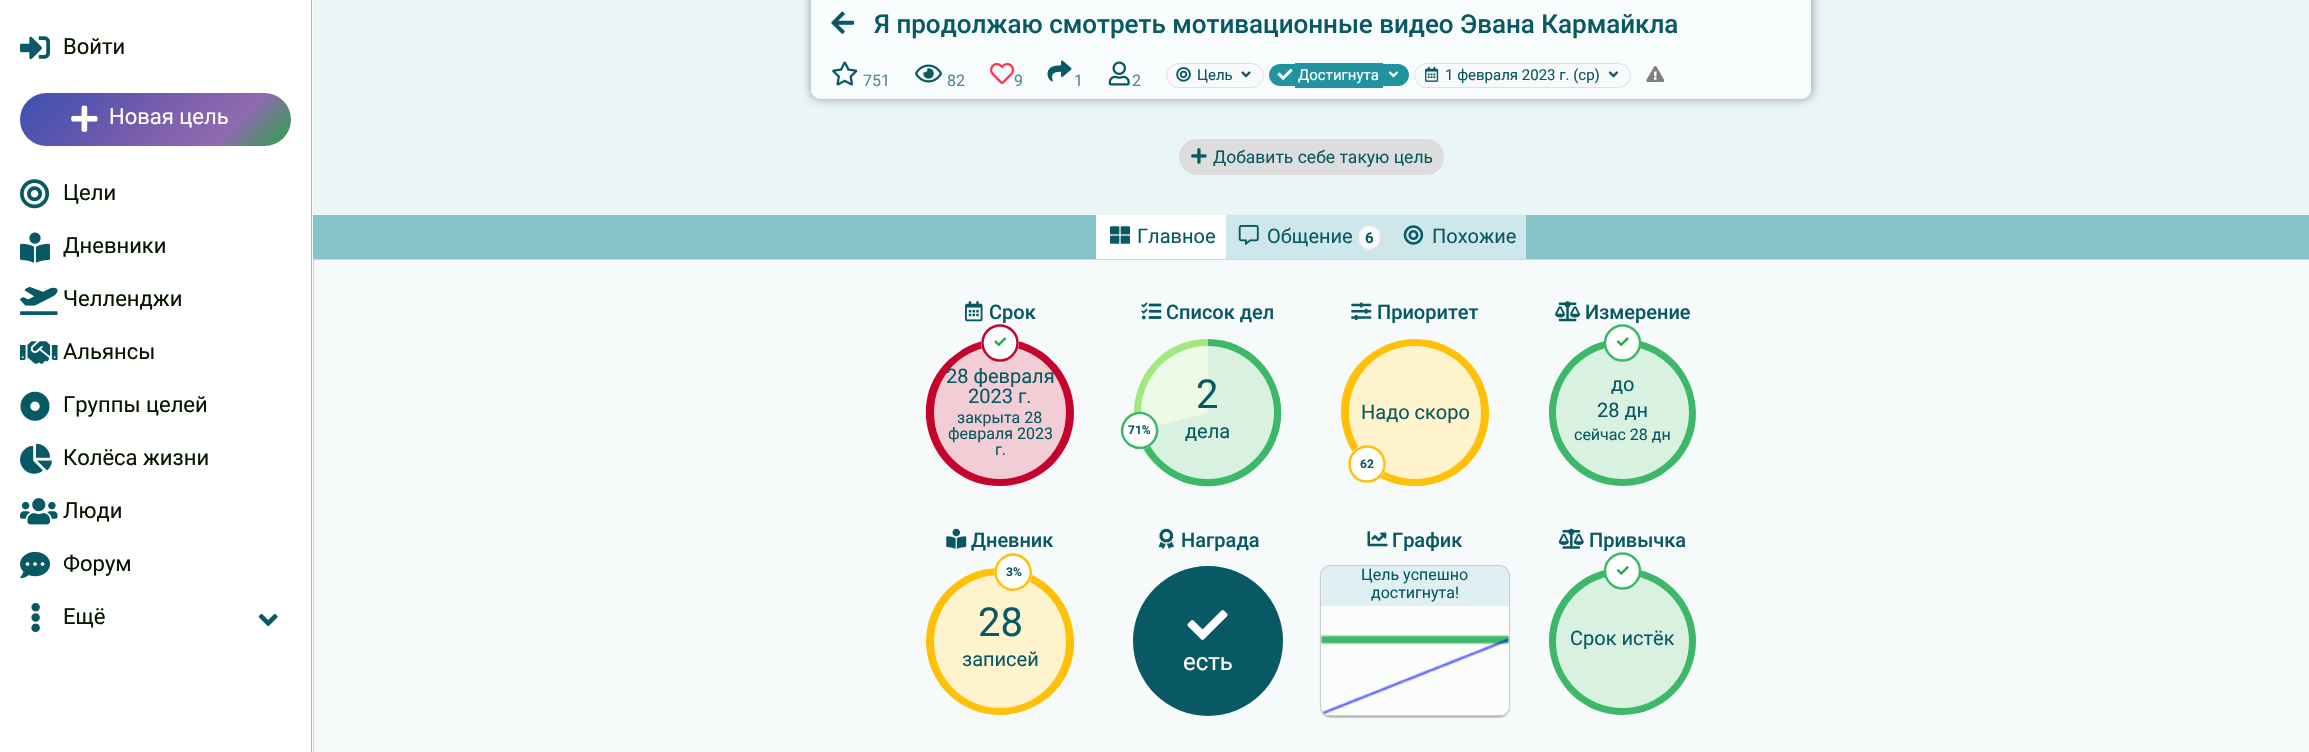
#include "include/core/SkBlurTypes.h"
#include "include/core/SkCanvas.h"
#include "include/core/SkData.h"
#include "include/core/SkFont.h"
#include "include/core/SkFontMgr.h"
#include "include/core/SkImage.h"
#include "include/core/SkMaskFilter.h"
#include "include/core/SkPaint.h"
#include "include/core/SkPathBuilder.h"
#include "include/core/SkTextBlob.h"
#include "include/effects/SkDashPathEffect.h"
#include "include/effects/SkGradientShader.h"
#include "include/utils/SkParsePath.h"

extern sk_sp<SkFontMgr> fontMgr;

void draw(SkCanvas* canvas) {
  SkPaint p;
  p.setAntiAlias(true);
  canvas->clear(SK_ColorWHITE);
  p.setColor(SkColorSetRGB(179, 179, 179));
  canvas->drawRect(SkRect::MakeLTRB(311, 0, 312, 752), p);
  canvas->drawImageRect(SkImages::DeferredFromEncodedData(SkData::MakeFromFileName("images/1.png")), SkRect::MakeLTRB(20, 36, 50, 60), SkSamplingOptions());
  {
    const SkColor colors[] = {SkColorSetRGB(63, 81, 177), SkColorSetRGB(90, 85, 174), SkColorSetRGB(123, 95, 172), SkColorSetRGB(143, 106, 174), SkColorSetRGB(40, 167, 69), SkColorSetRGB(143, 106, 174), SkColorSetRGB(123, 95, 172), SkColorSetRGB(90, 85, 174), SkColorSetRGB(63, 81, 177)};
    const float stops[] = {0, 0.13f, 0.25f, 0.38f, 0.5f, 0.62f, 0.75f, 0.87f, 1};
    const SkPoint ends[] = {{454, 309}, {129, -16}};
    p.setShader(SkGradientShader::MakeLinear(ends, colors, stops, 9, SkTileMode::kClamp));
    p.setAlpha(255);
  }
  canvas->drawRoundRect(SkRect::MakeLTRB(20, 93, 291, 146), 26.5f, 26.5f, p);
  canvas->drawImageRect(SkImages::DeferredFromEncodedData(SkData::MakeFromFileName("images/2.png")), SkRect::MakeLTRB(71, 105, 98, 132), SkSamplingOptions());
  canvas->drawImageRect(SkImages::DeferredFromEncodedData(SkData::MakeFromFileName("images/3.png")), SkRect::MakeLTRB(20, 179, 50, 209), SkSamplingOptions());
  canvas->drawImageRect(SkImages::DeferredFromEncodedData(SkData::MakeFromFileName("images/4.png")), SkRect::MakeLTRB(20, 232, 50, 263), SkSamplingOptions());
  canvas->drawImageRect(SkImages::DeferredFromEncodedData(SkData::MakeFromFileName("images/5.png")), SkRect::MakeLTRB(20, 286, 58, 315), SkSamplingOptions());
  canvas->drawImageRect(SkImages::DeferredFromEncodedData(SkData::MakeFromFileName("images/6.png")), SkRect::MakeLTRB(20, 341, 58, 364), SkSamplingOptions());
  canvas->drawImageRect(SkImages::DeferredFromEncodedData(SkData::MakeFromFileName("images/7.png")), SkRect::MakeLTRB(20, 391, 50, 421), SkSamplingOptions());
  canvas->drawImageRect(SkImages::DeferredFromEncodedData(SkData::MakeFromFileName("images/8.png")), SkRect::MakeLTRB(20, 443, 52, 474), SkSamplingOptions());
  canvas->drawImageRect(SkImages::DeferredFromEncodedData(SkData::MakeFromFileName("images/9.png")), SkRect::MakeLTRB(20, 498, 58, 525), SkSamplingOptions());
  canvas->drawImageRect(SkImages::DeferredFromEncodedData(SkData::MakeFromFileName("images/10.png")), SkRect::MakeLTRB(20, 551, 50, 579), SkSamplingOptions());
  canvas->drawImageRect(SkImages::DeferredFromEncodedData(SkData::MakeFromFileName("images/11.png")), SkRect::MakeLTRB(31, 603, 40, 632), SkSamplingOptions());
  canvas->drawImageRect(SkImages::DeferredFromEncodedData(SkData::MakeFromFileName("images/12.png")), SkRect::MakeLTRB(258, 614, 278, 626), SkSamplingOptions());
  p.setShader(nullptr);
  p.setColor(SkColorSetRGB(234, 245, 246));
  canvas->drawRect(SkRect::MakeLTRB(313, 0, 2309, 215), p);
  canvas->save();
  canvas->clipPath(SkPathBuilder(SkPathFillType::kEvenOdd).moveTo(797, 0).lineTo(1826, 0).lineTo(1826, 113).lineTo(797, 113).close().moveTo(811, -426).lineTo(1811, -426).lineTo(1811, 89).cubicTo(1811, 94.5f, 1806.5f, 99, 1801, 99).lineTo(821, 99).cubicTo(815.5f, 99, 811, 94.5f, 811, 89).close().detach(), true);
  p.setColor(SkColorSetARGB(77, 0, 0, 0));
  p.setMaskFilter(SkMaskFilter::MakeBlur(kNormal_SkBlurStyle, 4));
  canvas->drawRoundRect(SkRect::MakeLTRB(810, -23, 1813, 100), 11, 11, p);
  p.setMaskFilter(nullptr);
  canvas->restore();
  p.setColor(SkColorSetARGB(179, 255, 255, 255));
  canvas->drawPath(SkPathBuilder().moveTo(811, -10).lineTo(1811, -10).lineTo(1811, 89).cubicTo(1811, 94.5f, 1806.5f, 99, 1801, 99).lineTo(821, 99).cubicTo(815.5f, 99, 811, 94.5f, 811, 89).close().detach(), p);
  canvas->drawImageRect(SkImages::DeferredFromEncodedData(SkData::MakeFromFileName("images/13.png")), SkRect::MakeLTRB(831, 11, 855, 34), SkSamplingOptions());
  canvas->drawImageRect(SkImages::DeferredFromEncodedData(SkData::MakeFromFileName("images/14.png")), SkRect::MakeLTRB(832, 61, 858, 86), SkSamplingOptions());
  canvas->drawImageRect(SkImages::DeferredFromEncodedData(SkData::MakeFromFileName("images/15.png")), SkRect::MakeLTRB(915, 64, 942, 83), SkSamplingOptions());
  canvas->drawImageRect(SkImages::DeferredFromEncodedData(SkData::MakeFromFileName("images/16.png")), SkRect::MakeLTRB(990, 63, 1014, 84), SkSamplingOptions());
  canvas->drawImageRect(SkImages::DeferredFromEncodedData(SkData::MakeFromFileName("images/17.png")), SkRect::MakeLTRB(1047, 60, 1072, 82), SkSamplingOptions());
  canvas->drawImageRect(SkImages::DeferredFromEncodedData(SkData::MakeFromFileName("images/18.png")), SkRect::MakeLTRB(1108, 61, 1130, 86), SkSamplingOptions());
  p.setColor(SkColorSetRGB(248, 249, 250));
  canvas->drawRoundRect(SkRect::MakeLTRB(1166.5f, 63.5f, 1263.5f, 87.5f), 12, 12, p);
  p.setStyle(SkPaint::kStroke_Style);
  p.setStrokeWidth(1);
  p.setColor(SkColorSetRGB(223, 224, 225));
  canvas->drawRoundRect(SkRect::MakeLTRB(1166.5f, 63.5f, 1263.5f, 87.5f), 12, 12, p);
  canvas->drawImageRect(SkImages::DeferredFromEncodedData(SkData::MakeFromFileName("images/19.png")), SkRect::MakeLTRB(1176, 67, 1191, 82), SkSamplingOptions());
  canvas->drawImageRect(SkImages::DeferredFromEncodedData(SkData::MakeFromFileName("images/20.png")), SkRect::MakeLTRB(1241, 71, 1251, 78), SkSamplingOptions());
  p.setStyle(SkPaint::kFill_Style);
  p.setColor(SkColorSetRGB(32, 147, 159));
  canvas->drawPath(SkPathBuilder().moveTo(1280, 64).lineTo(1295, 64).lineTo(1295, 86).lineTo(1280, 86).cubicTo(1274, 86, 1269, 81, 1269, 75).cubicTo(1269, 69, 1274, 64, 1280, 64).close().detach(), p);
  canvas->drawRect(SkRect::MakeLTRB(1295, 63, 1383, 88), p);
  canvas->drawPath(SkPathBuilder().moveTo(1383, 64).lineTo(1398, 64).cubicTo(1404, 64, 1409, 69, 1409, 75).cubicTo(1409, 81, 1404, 86, 1398, 86).lineTo(1383, 86).close().detach(), p);
  canvas->drawImageRect(SkImages::DeferredFromEncodedData(SkData::MakeFromFileName("images/21.png")), SkRect::MakeLTRB(1277, 68, 1293, 80), SkSamplingOptions());
  canvas->drawImageRect(SkImages::DeferredFromEncodedData(SkData::MakeFromFileName("images/22.png")), SkRect::MakeLTRB(1388, 71, 1399, 78), SkSamplingOptions());
  p.setColor(SkColorSetRGB(248, 249, 250));
  canvas->drawRoundRect(SkRect::MakeLTRB(1414.5f, 63.5f, 1630.5f, 87.5f), 12, 12, p);
  p.setStyle(SkPaint::kStroke_Style);
  p.setColor(SkColorSetRGB(223, 224, 225));
  canvas->drawRoundRect(SkRect::MakeLTRB(1414.5f, 63.5f, 1630.5f, 87.5f), 12, 12, p);
  canvas->drawImageRect(SkImages::DeferredFromEncodedData(SkData::MakeFromFileName("images/23.png")), SkRect::MakeLTRB(1425, 66, 1439, 82), SkSamplingOptions());
  canvas->drawImageRect(SkImages::DeferredFromEncodedData(SkData::MakeFromFileName("images/24.png")), SkRect::MakeLTRB(1608, 71, 1619, 78), SkSamplingOptions());
  canvas->drawImageRect(SkImages::DeferredFromEncodedData(SkData::MakeFromFileName("images/25.png")), SkRect::MakeLTRB(1646, 66, 1665, 82), SkSamplingOptions());
  p.setStyle(SkPaint::kFill_Style);
  p.setColor(SkColorSetRGB(221, 221, 221));
  canvas->drawRoundRect(SkRect::MakeLTRB(1179, 139, 1444, 175), 18, 18, p);
  canvas->drawImageRect(SkImages::DeferredFromEncodedData(SkData::MakeFromFileName("images/26.png")), SkRect::MakeLTRB(1191, 148, 1207, 164), SkSamplingOptions());
  p.setColor(SkColorSetRGB(133, 196, 203));
  canvas->drawRect(SkRect::MakeLTRB(313, 215, 2309, 259), p);
  p.setColor(SK_ColorWHITE);
  canvas->drawRect(SkRect::MakeLTRB(1096, 215, 1226, 259), p);
  canvas->drawImageRect(SkImages::DeferredFromEncodedData(SkData::MakeFromFileName("images/27.png")), SkRect::MakeLTRB(1110, 226, 1130, 244), SkSamplingOptions());
  p.setColor(SkColorSetRGB(206, 231, 234));
  canvas->drawRect(SkRect::MakeLTRB(1226, 215, 1526, 259), p);
  canvas->drawImageRect(SkImages::DeferredFromEncodedData(SkData::MakeFromFileName("images/28.png")), SkRect::MakeLTRB(1238, 225, 1259, 245), SkSamplingOptions());
  p.setColor(SkColorSetRGB(248, 249, 250));
  canvas->drawRoundRect(SkRect::MakeLTRB(1358, 225, 1381, 250), 11.5f, 11.5f, p);
  p.setStyle(SkPaint::kStroke_Style);
  p.setColor(SkColorSetARGB(26, 0, 0, 0));
  canvas->drawRoundRect(SkRect::MakeLTRB(1358.5f, 225.5f, 1380.5f, 249.5f), 11, 11, p);
  canvas->drawImageRect(SkImages::DeferredFromEncodedData(SkData::MakeFromFileName("images/29.png")), SkRect::MakeLTRB(1403, 225, 1424, 245), SkSamplingOptions());
  p.setStyle(SkPaint::kFill_Style);
  p.setColor(SkColorSetRGB(247, 250, 251));
  canvas->drawRect(SkRect::MakeLTRB(313.5f, 259.5f, 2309.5f, 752.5f), p);
  p.setStyle(SkPaint::kStroke_Style);
  p.setColor(SkColorSetRGB(199, 218, 221));
  canvas->drawRect(SkRect::MakeLTRB(313.5f, 259.5f, 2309.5f, 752.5f), p);
  canvas->drawImageRect(SkImages::DeferredFromEncodedData(SkData::MakeFromFileName("images/30.png")), SkRect::MakeLTRB(965, 301, 983, 322), SkSamplingOptions());
  p.setStyle(SkPaint::kFill_Style);
  p.setColor(SkColorSetRGB(197, 4, 45));
  canvas->drawPath(SkPathBuilder().moveTo(1000, 339).cubicTo(985, 339, 971, 343, 959, 352).cubicTo(898, 392, 927, 486, 1000, 486).close().detach(), p);
  canvas->drawPath(SkPathBuilder().moveTo(1074, 413).cubicTo(1074, 454, 1041, 486, 1000, 486).lineTo(1000, 339).cubicTo(1041, 339, 1074, 372, 1074, 413).close().detach(), p);
  p.setColor(SkColorSetRGB(243, 205, 213));
  canvas->drawRoundRect(SkRect::MakeLTRB(934, 346, 1066, 479), 66, 66, p);
  p.setColor(SK_ColorWHITE);
  canvas->drawPath(SkPathBuilder().moveTo(1019, 343).cubicTo(1019, 353.5f, 1010.5f, 361.5f, 1000, 361.5f).cubicTo(989.5f, 361.5f, 981, 353.5f, 981, 343).cubicTo(981, 332.5f, 989.5f, 324, 1000, 324).cubicTo(1010.5f, 324, 1019, 332.5f, 1019, 343).close().detach(), p);
  p.setStyle(SkPaint::kStroke_Style);
  p.setStrokeWidth(2.5f);
  p.setColor(SkColorSetRGB(197, 4, 45));
  canvas->drawPath(SkPathBuilder().moveTo(1017.5f, 343).cubicTo(1017.5f, 352.5f, 1009.5f, 360.5f, 1000, 360.5f).cubicTo(990.5f, 360.5f, 982.5f, 352.5f, 982.5f, 343).cubicTo(982.5f, 333.5f, 990.5f, 325.5f, 1000, 325.5f).cubicTo(1009.5f, 325.5f, 1017.5f, 333.5f, 1017.5f, 343).close().detach(), p);
  canvas->drawImageRect(SkImages::DeferredFromEncodedData(SkData::MakeFromFileName("images/31.png")), SkRect::MakeLTRB(994, 337, 1007, 347), SkSamplingOptions());
  canvas->drawImageRect(SkImages::DeferredFromEncodedData(SkData::MakeFromFileName("images/32.png")), SkRect::MakeLTRB(1141, 302, 1162, 320), SkSamplingOptions());
  p.setStyle(SkPaint::kFill_Style);
  p.setColor(SkColorSetRGB(161, 232, 128));
  canvas->drawPath(SkPathBuilder().moveTo(1208, 339).cubicTo(1136, 339, 1106, 433, 1166, 473).cubicTo(1179, 482, 1193, 486, 1208, 486).close().detach(), p);
  p.setColor(SkColorSetRGB(60, 184, 104));
  canvas->drawPath(SkPathBuilder().moveTo(1281, 413).cubicTo(1281, 453, 1248, 486, 1208, 486).lineTo(1208, 339).cubicTo(1248, 339, 1281, 372, 1281, 413).close().detach(), p);
  canvas->drawPath(SkPathBuilder().moveTo(1279, 395).cubicTo(1295, 462, 1217, 514, 1162, 470).cubicTo(1150, 460, 1140, 446, 1136, 431).close().detach(), p);
  p.setColor(SkColorSetARGB(204, 255, 255, 255));
  canvas->drawCircle(1207.5f, 412.5f, 66.5f, p);
  p.setColor(SK_ColorWHITE);
  canvas->drawPath(SkPathBuilder().moveTo(1135, 412).cubicTo(1159, 406, 1168, 442, 1144, 449).cubicTo(1121, 455, 1111, 418, 1135, 412).close().detach(), p);
  p.setStyle(SkPaint::kStroke_Style);
  p.setColor(SkColorSetRGB(60, 184, 104));
  canvas->drawPath(SkPathBuilder().moveTo(1135.5f, 413.5f).cubicTo(1144.5f, 411, 1154, 416.5f, 1156.5f, 426).cubicTo(1159, 435.5f, 1153.5f, 445, 1144, 447.5f).cubicTo(1134.5f, 449.5f, 1125, 444, 1122.5f, 434.5f).cubicTo(1120.5f, 425.5f, 1126, 416, 1135.5f, 413.5f).close().detach(), p);
  canvas->drawImageRect(SkImages::DeferredFromEncodedData(SkData::MakeFromFileName("images/33.png")), SkRect::MakeLTRB(1351, 302, 1372, 320), SkSamplingOptions());
  p.setStyle(SkPaint::kFill_Style);
  p.setColor(SkColorSetRGB(255, 193, 7));
  canvas->drawPath(SkPathBuilder().moveTo(1414, 339).cubicTo(1400, 339, 1386, 344, 1373, 352).cubicTo(1313, 392, 1343, 486, 1415, 486).lineTo(1415, 339).close().detach(), p);
  canvas->drawPath(SkPathBuilder().moveTo(1489, 413).cubicTo(1489, 454, 1456, 486, 1415, 486).lineTo(1415, 339).cubicTo(1456, 339, 1489, 372, 1489, 413).close().detach(), p);
  canvas->drawPath(SkPathBuilder().moveTo(1487, 428).cubicTo(1476, 484, 1406, 504, 1365, 467).lineTo(1465, 359).cubicTo(1485, 377, 1492, 404, 1487, 428).close().detach(), p);
  p.setColor(SkColorSetRGB(255, 243, 205));
  canvas->drawRoundRect(SkRect::MakeLTRB(1349, 346, 1481, 479), 66, 66, p);
  p.setColor(SK_ColorWHITE);
  canvas->drawPath(SkPathBuilder().moveTo(1353, 451).cubicTo(1370, 433, 1398, 459, 1381, 477).cubicTo(1364, 495, 1337, 469, 1353, 451).close().detach(), p);
  p.setStyle(SkPaint::kStroke_Style);
  p.setColor(SkColorSetRGB(255, 193, 7));
  canvas->drawPath(SkPathBuilder().moveTo(1354.5f, 452).cubicTo(1361, 445, 1372, 444.5f, 1379, 451).cubicTo(1386, 458, 1386.5f, 469, 1380, 476).cubicTo(1373, 483, 1362, 483.5f, 1355, 477).cubicTo(1348, 470, 1347.5f, 459, 1354.5f, 452).close().detach(), p);
  canvas->drawImageRect(SkImages::DeferredFromEncodedData(SkData::MakeFromFileName("images/34.png")), SkRect::MakeLTRB(1555, 301, 1580, 322), SkSamplingOptions());
  p.setStyle(SkPaint::kFill_Style);
  p.setColor(SkColorSetRGB(60, 184, 104));
  canvas->drawPath(SkPathBuilder().moveTo(1581, 352).cubicTo(1562, 365, 1549, 388, 1549, 413).cubicTo(1549, 453, 1582, 486, 1622, 486).lineTo(1622, 339).cubicTo(1607, 339, 1592, 344, 1581, 352).close().detach(), p);
  canvas->drawPath(SkPathBuilder().moveTo(1622, 339).lineTo(1622, 486).cubicTo(1637, 486, 1651, 482, 1664, 473).cubicTo(1724, 433, 1694, 339, 1622, 339).close().detach(), p);
  p.setColor(SkColorSetRGB(216, 241, 225));
  canvas->drawCircle(1622.5f, 412.5f, 66.5f, p);
  p.setColor(SK_ColorWHITE);
  canvas->drawPath(SkPathBuilder().moveTo(1641, 343).cubicTo(1641, 353.5f, 1633, 361.5f, 1622.5f, 361.5f).cubicTo(1612, 361.5f, 1604, 353.5f, 1604, 343).cubicTo(1604, 332.5f, 1612, 324, 1622.5f, 324).cubicTo(1633, 324, 1641, 332.5f, 1641, 343).close().detach(), p);
  p.setStyle(SkPaint::kStroke_Style);
  p.setColor(SkColorSetRGB(60, 184, 104));
  canvas->drawPath(SkPathBuilder().moveTo(1640, 343).cubicTo(1640, 352.5f, 1632, 360.5f, 1622.5f, 360.5f).cubicTo(1613, 360.5f, 1605, 352.5f, 1605, 343).cubicTo(1605, 333.5f, 1613, 325.5f, 1622.5f, 325.5f).cubicTo(1632, 325.5f, 1640, 333.5f, 1640, 343).close().detach(), p);
  canvas->drawImageRect(SkImages::DeferredFromEncodedData(SkData::MakeFromFileName("images/35.png")), SkRect::MakeLTRB(1616, 337, 1629, 347), SkSamplingOptions());
  canvas->drawImageRect(SkImages::DeferredFromEncodedData(SkData::MakeFromFileName("images/36.png")), SkRect::MakeLTRB(946, 528, 967, 549), SkSamplingOptions());
  p.setStyle(SkPaint::kFill_Style);
  p.setColor(SkColorSetRGB(255, 193, 7));
  canvas->drawPath(SkPathBuilder().moveTo(1000, 568).lineTo(1000, 715).cubicTo(959, 715, 926, 682, 926, 641).cubicTo(926, 601, 959, 568, 1000, 568).close().detach(), p);
  canvas->drawPath(SkPathBuilder().moveTo(1000, 715).cubicTo(1015, 715, 1029, 710, 1042, 702).cubicTo(1102, 662, 1072, 568, 1000, 568).close().detach(), p);
  canvas->drawPath(SkPathBuilder().moveTo(1072, 655).cubicTo(1065, 695, 1026, 721, 986, 713).lineTo(1014, 569).cubicTo(1054, 577, 1080, 615, 1072, 655).close().detach(), p);
  p.setColor(SkColorSetRGB(255, 243, 205));
  canvas->drawRoundRect(SkRect::MakeLTRB(934, 575, 1066, 708), 66, 66, p);
  p.setColor(SK_ColorWHITE);
  canvas->drawPath(SkPathBuilder().moveTo(1032, 576).cubicTo(1027, 600, 990, 593, 995, 569).cubicTo(999, 545, 1036, 552, 1032, 576).close().detach(), p);
  p.setStyle(SkPaint::kStroke_Style);
  p.setColor(SkColorSetRGB(255, 193, 7));
  canvas->drawPath(SkPathBuilder().moveTo(1030.5f, 575.5f).cubicTo(1028.5f, 585, 1019.5f, 591, 1010, 589.5f).cubicTo(1000.5f, 587.5f, 994, 578.5f, 996, 569).cubicTo(997.5f, 559.5f, 1007, 553, 1016.5f, 555).cubicTo(1026, 557, 1032, 566, 1030.5f, 575.5f).close().detach(), p);
  canvas->drawImageRect(SkImages::DeferredFromEncodedData(SkData::MakeFromFileName("images/37.png")), SkRect::MakeLTRB(1158, 528, 1174, 549), SkSamplingOptions());
  p.setStyle(SkPaint::kFill_Style);
  p.setColor(SkColorSetRGB(8, 89, 99));
  canvas->drawCircle(1208, 641, 75, p);
  canvas->drawImageRect(SkImages::DeferredFromEncodedData(SkData::MakeFromFileName("images/38.png")), SkRect::MakeLTRB(1187, 610, 1228, 640), SkSamplingOptions());
  canvas->drawImageRect(SkImages::DeferredFromEncodedData(SkData::MakeFromFileName("images/39.png")), SkRect::MakeLTRB(1367, 531, 1388, 547), SkSamplingOptions());
  canvas->save();
  canvas->clipPath(SkPathBuilder(SkPathFillType::kEvenOdd).moveTo(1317, 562).lineTo(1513, 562).lineTo(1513, 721).lineTo(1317, 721).close().moveTo(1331, 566).lineTo(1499, 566).cubicTo(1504.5f, 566, 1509, 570.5f, 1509, 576).lineTo(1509, 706).cubicTo(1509, 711.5f, 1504.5f, 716, 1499, 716).lineTo(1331, 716).cubicTo(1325.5f, 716, 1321, 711.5f, 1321, 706).lineTo(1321, 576).cubicTo(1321, 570.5f, 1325.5f, 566, 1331, 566).close().detach(), true);
  p.setColor(SkColorSetARGB(51, 0, 0, 0));
  p.setMaskFilter(SkMaskFilter::MakeBlur(kNormal_SkBlurStyle, 0.5f));
  canvas->drawRoundRect(SkRect::MakeLTRB(1320, 565, 1510, 718), 11, 11, p);
  p.setMaskFilter(nullptr);
  canvas->restore();
  p.setColor(SkColorSetARGB(26, 32, 147, 159));
  canvas->drawPath(SkPathBuilder().moveTo(1331, 566).lineTo(1499, 566).cubicTo(1504.5f, 566, 1509, 570.5f, 1509, 576).lineTo(1509, 606).lineTo(1321, 606).lineTo(1321, 576).cubicTo(1321, 570.5f, 1325.5f, 566, 1331, 566).close().detach(), p);
  p.setColor(SkColorSetARGB(128, 255, 255, 255));
  canvas->drawPath(SkPathBuilder().moveTo(1321, 606).lineTo(1509, 606).lineTo(1509, 706).cubicTo(1509, 711.5f, 1504.5f, 716, 1499, 716).lineTo(1331, 716).cubicTo(1325.5f, 716, 1321, 711.5f, 1321, 706).close().detach(), p);
  canvas->drawImageRect(SkImages::DeferredFromEncodedData(SkData::MakeFromFileName("images/40.png")), SkRect::MakeLTRB(1321, 635, 1509, 717), SkSamplingOptions());
  canvas->drawImageRect(SkImages::DeferredFromEncodedData(SkData::MakeFromFileName("images/41.png")), SkRect::MakeLTRB(1558, 528, 1584, 549), SkSamplingOptions());
  p.setColor(SkColorSetRGB(60, 184, 104));
  canvas->drawPath(SkPathBuilder().moveTo(1581, 702).cubicTo(1562, 689, 1549, 666, 1549, 641).cubicTo(1549, 601, 1582, 568, 1622, 568).lineTo(1622, 715).cubicTo(1607, 715, 1592, 710, 1581, 702).close().detach(), p);
  canvas->drawPath(SkPathBuilder().moveTo(1622, 568).lineTo(1622, 715).cubicTo(1663, 715, 1696, 682, 1696, 641).cubicTo(1696, 601, 1663, 568, 1622, 568).close().detach(), p);
  p.setColor(SkColorSetRGB(216, 241, 225));
  canvas->drawCircle(1622.5f, 641.5f, 66.5f, p);
  p.setColor(SK_ColorWHITE);
  canvas->drawPath(SkPathBuilder().moveTo(1641, 571).cubicTo(1641, 581.5f, 1633, 589.5f, 1622.5f, 589.5f).cubicTo(1612, 589.5f, 1604, 581.5f, 1604, 571).cubicTo(1604, 560.5f, 1612, 552, 1622.5f, 552).cubicTo(1633, 552, 1641, 560.5f, 1641, 571).close().detach(), p);
  p.setStyle(SkPaint::kStroke_Style);
  p.setColor(SkColorSetRGB(60, 184, 104));
  canvas->drawPath(SkPathBuilder().moveTo(1640, 571).cubicTo(1640, 580.5f, 1632, 588.5f, 1622.5f, 588.5f).cubicTo(1613, 588.5f, 1605, 580.5f, 1605, 571).cubicTo(1605, 561.5f, 1613, 553.5f, 1622.5f, 553.5f).cubicTo(1632, 553.5f, 1640, 561.5f, 1640, 571).close().detach(), p);
  canvas->drawImageRect(SkImages::DeferredFromEncodedData(SkData::MakeFromFileName("images/42.png")), SkRect::MakeLTRB(1616, 566, 1629, 575), SkSamplingOptions());
  SkFont font1(fontMgr->matchFamilyStyle("Roboto", SkFontStyle::Normal()), 22);
  font1.setSubpixel(true);
  p.setStyle(SkPaint::kFill_Style);
  p.setColor(SkColorSetRGB(6, 21, 0));
  canvas->drawString("Войти", 63, 54, font1, p);
  p.setColor(SK_ColorWHITE);
  canvas->drawString("Новая цель", 109, 124, font1, p);
  p.setColor(SkColorSetRGB(6, 21, 0));
  canvas->drawString("Цели", 63, 200, font1, p);
  canvas->drawString("Дневники", 63, 253, font1, p);
  canvas->drawString("Челленджи", 63, 306, font1, p);
  canvas->drawString("Альянсы", 63, 359, font1, p);
  canvas->drawString("Группы целей", 63, 412, font1, p);
  canvas->drawString("Колёса жизни", 63, 465, font1, p);
  canvas->drawString("Люди", 63, 518, font1, p);
  canvas->drawString("Форум", 63, 571, font1, p);
  canvas->drawString("Ещё", 63, 624, font1, p);
  SkFont font2(fontMgr->matchFamilyStyle("Roboto", SkFontStyle(500, SkFontStyle::kNormal_Width, SkFontStyle::kUpright_Slant)), 26);
  font2.setSubpixel(true);
  p.setColor(SkColorSetRGB(8, 89, 99));
  canvas->drawString("Я продолжаю смотреть мотивационные видео Эвана Кармайкла", 874, 33, font2, p);
  SkFont font3(fontMgr->matchFamilyStyle("Roboto", SkFontStyle::Normal()), 16);
  font3.setSubpixel(true);
  p.setColor(SkColorSetRGB(80, 138, 145));
  canvas->drawString("751", 863, 86, font3, p);
  canvas->drawString("82", 947, 86, font3, p);
  canvas->drawString("9", 1014, 86, font3, p);
  canvas->drawString("1", 1074, 86, font3, p);
  canvas->drawString("2", 1132, 86, font3, p);
  SkFont font4(fontMgr->matchFamilyStyle("Roboto", SkFontStyle::Normal()), 15);
  font4.setSubpixel(true);
  p.setColor(SkColorSetRGB(8, 89, 99));
  canvas->drawString("Цель", 1197, 80, font4, p);
  p.setColor(SK_ColorWHITE);
  canvas->drawString("Достигнута", 1298, 80, font4, p);
  p.setColor(SkColorSetRGB(8, 89, 99));
  canvas->drawString("1 февраля 2023 г. (ср)", 1445, 80, font4, p);
  SkFont font5(fontMgr->matchFamilyStyle("Roboto", SkFontStyle::Normal()), 17.5f);
  font5.setSubpixel(true);
  canvas->drawString("Добавить себе такую цель", 1213, 163, font5, p);
  SkFont font6(fontMgr->matchFamilyStyle("Roboto", SkFontStyle::Normal()), 20);
  font6.setSubpixel(true);
  canvas->drawString("Главное", 1137, 243, font6, p);
  canvas->drawString("Общение", 1267, 243, font6, p);
  SkFont font7(fontMgr->matchFamilyStyle("Roboto", SkFontStyle::Bold()), 15);
  font7.setSubpixel(true);
  canvas->drawString("6", 1365, 243, font7, p);
  canvas->drawString("Похожие", 1432, 243, font6, p);
  SkFont font8(fontMgr->matchFamilyStyle("Roboto", SkFontStyle(500, SkFontStyle::kNormal_Width, SkFontStyle::kUpright_Slant)), 20);
  font8.setSubpixel(true);
  canvas->drawString("Срок", 989, 319, font8, p);
  canvas->drawString("28 февраля", 946, 383, font6, p);
  canvas->drawString("2023 г.", 968, 403, font6, p);
  canvas->drawString("закрыта 28", 957, 423, font3, p);
  canvas->drawString("февраля 2023", 948, 439, font3, p);
  canvas->drawString("г.", 995, 455, font3, p);
  canvas->drawString("Список дел", 1166, 319, font8, p);
  SkFont font9(fontMgr->matchFamilyStyle("Roboto", SkFontStyle::Bold()), 12);
  font9.setSubpixel(true);
  canvas->drawString("71%", 1128, 434, font9, p);
  SkFont font10(fontMgr->matchFamilyStyle("Roboto", SkFontStyle::Normal()), 40);
  font10.setSubpixel(true);
  canvas->drawString("2", 1196, 408, font10, p);
  canvas->drawString("дела", 1185, 438, font6, p);
  canvas->drawString("Приоритет", 1377, 319, font8, p);
  canvas->drawString("Надо скоро", 1361, 419, font6, p);
  canvas->drawString("62", 1360, 468, font9, p);
  canvas->drawString("Измерение", 1585, 319, font8, p);
  canvas->drawString("до", 1611, 391, font6, p);
  canvas->drawString("28 дн", 1597, 417, font6, p);
  canvas->drawString("сейчас 28 дн", 1574, 440, font3, p);
  canvas->drawString("Дневник", 971, 547, font8, p);
  canvas->drawString("3%", 1006, 576, font9, p);
  canvas->drawString("28", 978, 636, font10, p);
  canvas->drawString("записей", 962, 666, font6, p);
  canvas->drawString("Награда", 1181, 547, font8, p);
  SkFont font11(fontMgr->matchFamilyStyle("Roboto", SkFontStyle::Normal()), 24);
  font11.setSubpixel(true);
  p.setColor(SK_ColorWHITE);
  canvas->drawString("есть", 1183, 670, font11, p);
  p.setColor(SkColorSetRGB(8, 89, 99));
  canvas->drawString("График", 1392, 547, font8, p);
  canvas->drawString("Цель успешно", 1361, 580, font3, p);
  canvas->drawString("достигнута!", 1371, 598, font3, p);
  canvas->drawString("Привычка", 1589, 547, font8, p);
  canvas->drawString("Срок истёк", 1570, 645, font6, p);
}
